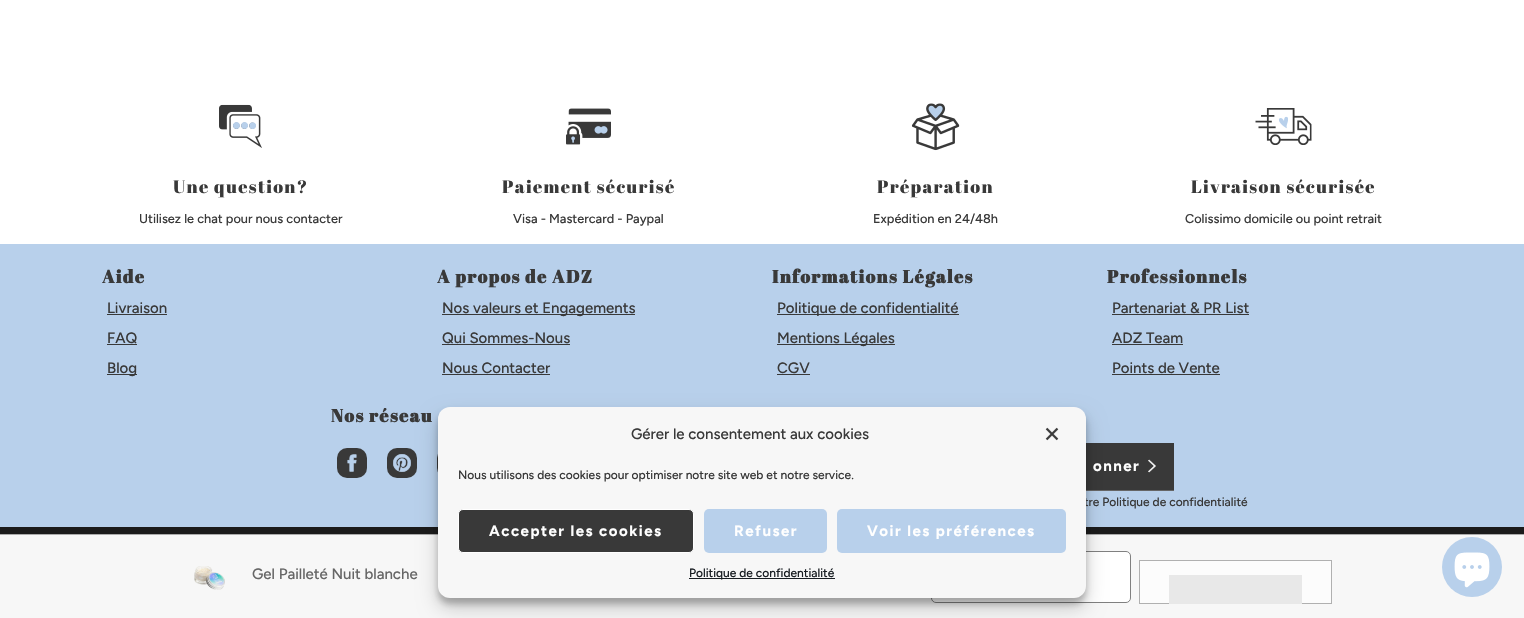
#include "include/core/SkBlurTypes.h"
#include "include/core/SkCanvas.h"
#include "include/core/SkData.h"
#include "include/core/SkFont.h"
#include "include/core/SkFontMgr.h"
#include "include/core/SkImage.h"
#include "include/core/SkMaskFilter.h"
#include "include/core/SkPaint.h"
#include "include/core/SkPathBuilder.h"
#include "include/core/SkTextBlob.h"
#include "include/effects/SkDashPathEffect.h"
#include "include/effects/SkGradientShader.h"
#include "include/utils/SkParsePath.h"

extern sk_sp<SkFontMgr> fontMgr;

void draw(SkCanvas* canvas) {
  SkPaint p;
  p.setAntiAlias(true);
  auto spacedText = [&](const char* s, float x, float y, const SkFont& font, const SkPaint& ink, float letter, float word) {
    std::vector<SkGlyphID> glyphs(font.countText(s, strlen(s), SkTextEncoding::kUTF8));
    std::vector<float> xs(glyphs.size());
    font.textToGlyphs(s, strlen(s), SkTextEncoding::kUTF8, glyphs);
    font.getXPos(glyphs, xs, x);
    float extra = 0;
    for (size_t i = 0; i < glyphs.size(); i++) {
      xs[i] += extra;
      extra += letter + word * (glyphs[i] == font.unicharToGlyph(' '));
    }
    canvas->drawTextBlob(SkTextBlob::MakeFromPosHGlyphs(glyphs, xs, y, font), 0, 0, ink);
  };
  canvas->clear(SK_ColorWHITE);
  canvas->drawImageRect(SkImages::DeferredFromEncodedData(SkData::MakeFromFileName("images/1.png")), SkRect::MakeLTRB(219, 104, 262, 148), SkSamplingOptions());
  canvas->drawImageRect(SkImages::DeferredFromEncodedData(SkData::MakeFromFileName("images/2.png")), SkRect::MakeLTRB(566, 108, 611, 145), SkSamplingOptions());
  canvas->drawImageRect(SkImages::DeferredFromEncodedData(SkData::MakeFromFileName("images/3.png")), SkRect::MakeLTRB(911, 103, 960, 151), SkSamplingOptions());
  canvas->drawImageRect(SkImages::DeferredFromEncodedData(SkData::MakeFromFileName("images/4.png")), SkRect::MakeLTRB(1255, 108, 1312, 145), SkSamplingOptions());
  p.setColor(SkColorSetRGB(184, 208, 235));
  canvas->drawRect(SkRect::MakeLTRB(0, 244, 1524, 527), p);
  p.setColor(SkColorSetRGB(57, 57, 57));
  canvas->drawRect(SkRect::MakeLTRB(107, 314, 167, 315), p);
  canvas->drawRect(SkRect::MakeLTRB(107, 344, 137, 345), p);
  canvas->drawRect(SkRect::MakeLTRB(107, 374, 137, 375), p);
  canvas->drawRect(SkRect::MakeLTRB(442, 314, 635, 315), p);
  canvas->drawRect(SkRect::MakeLTRB(442, 344, 570, 345), p);
  canvas->drawRect(SkRect::MakeLTRB(442, 374, 550, 375), p);
  canvas->drawRect(SkRect::MakeLTRB(777, 314, 959, 315), p);
  canvas->drawRect(SkRect::MakeLTRB(777, 344, 895, 345), p);
  canvas->drawRect(SkRect::MakeLTRB(777, 374, 810, 375), p);
  canvas->drawRect(SkRect::MakeLTRB(1112, 314, 1249, 315), p);
  canvas->drawRect(SkRect::MakeLTRB(1112, 344, 1183, 345), p);
  canvas->drawRect(SkRect::MakeLTRB(1112, 374, 1220, 375), p);
  canvas->drawRoundRect(SkRect::MakeLTRB(337, 448, 367, 478), 10, 10, p);
  canvas->drawImageRect(SkImages::DeferredFromEncodedData(SkData::MakeFromFileName("images/5.png")), SkRect::MakeLTRB(347, 454, 357, 472), SkSamplingOptions());
  canvas->drawRoundRect(SkRect::MakeLTRB(387, 448, 417, 478), 10, 10, p);
  canvas->drawImageRect(SkImages::DeferredFromEncodedData(SkData::MakeFromFileName("images/6.png")), SkRect::MakeLTRB(393, 454, 411, 472), SkSamplingOptions());
  canvas->drawRoundRect(SkRect::MakeLTRB(437, 448, 467, 478), 10, 10, p);
  p.setColor(SkColorSetRGB(102, 102, 102));
  canvas->drawRect(SkRect::MakeLTRB(1086, 490, 1174, 491), p);
  p.setColor(SkColorSetRGB(57, 57, 57));
  canvas->drawRect(SkRect::MakeLTRB(1086, 443, 1174, 490), p);
  canvas->drawImageRect(SkImages::DeferredFromEncodedData(SkData::MakeFromFileName("images/7.png")), SkRect::MakeLTRB(1148, 459, 1156, 473), SkSamplingOptions());
  p.setColor(SkColorSetRGB(27, 27, 27));
  canvas->drawRect(SkRect::MakeLTRB(0, 527, 1524, 534), p);
  p.setColor(SkColorSetRGB(247, 247, 247));
  canvas->drawRect(SkRect::MakeLTRB(0, 535, 1524, 618), p);
  p.setColor(SkColorSetRGB(171, 171, 171));
  canvas->drawRect(SkRect::MakeLTRB(0, 534, 1524, 535), p);
  p.setColor(SK_ColorWHITE);
  canvas->drawRoundRect(SkRect::MakeLTRB(931.5f, 551.5f, 1130.5f, 602.5f), 4.5f, 4.5f, p);
  p.setStyle(SkPaint::kStroke_Style);
  p.setStrokeWidth(1);
  p.setColor(SkColorSetRGB(128, 128, 128));
  canvas->drawRoundRect(SkRect::MakeLTRB(931.5f, 551.5f, 1130.5f, 602.5f), 4.5f, 4.5f, p);
  p.setStyle(SkPaint::kFill_Style);
  p.setColor(SkColorSetARGB(59, 0, 0, 0));
  p.setMaskFilter(SkMaskFilter::MakeBlur(kNormal_SkBlurStyle, 3));
  canvas->drawRoundRect(SkRect::MakeLTRB(438, 413, 1086, 604), 12, 12, p);
  p.setMaskFilter(nullptr);
  p.setColor(SkColorSetARGB(48, 0, 0, 0));
  p.setMaskFilter(SkMaskFilter::MakeBlur(kNormal_SkBlurStyle, 10));
  canvas->drawRoundRect(SkRect::MakeLTRB(438, 417, 1086, 608), 12, 12, p);
  p.setMaskFilter(nullptr);
  canvas->drawImageRect(SkImages::DeferredFromEncodedData(SkData::MakeFromFileName("images/9.png")), SkRect::MakeLTRB(194, 566, 225, 590), SkSamplingOptions());
  p.setColor(SkColorSetRGB(252, 252, 252));
  canvas->drawRect(SkRect::MakeLTRB(1139.5f, 560.5f, 1331.5f, 603.5f), p);
  p.setStyle(SkPaint::kStroke_Style);
  p.setColor(SkColorSetRGB(176, 176, 176));
  canvas->drawRect(SkRect::MakeLTRB(1139.5f, 560.5f, 1331.5f, 603.5f), p);
  p.setStyle(SkPaint::kFill_Style);
  p.setColor(SkColorSetRGB(232, 232, 232));
  canvas->drawRect(SkRect::MakeLTRB(1169, 575, 1302, 604), p);
  p.setColor(SkColorSetRGB(184, 208, 235));
  canvas->drawCircle(1472, 567, 30, p);
  canvas->drawImageRect(SkImages::DeferredFromEncodedData(SkData::MakeFromFileName("images/10.png")), SkRect::MakeLTRB(1454, 552, 1490, 588), SkSamplingOptions());
  SkFont font1(fontMgr->matchFamilyStyle("Abril Fatface", SkFontStyle::Normal()), 18);
  font1.setSubpixel(true);
  p.setColor(SkColorSetRGB(57, 57, 57));
  spacedText("Une question?", 173, 193, font1, p, 1.3f, 0);
  SkFont font2(fontMgr->matchFamilyStyle("Figtree", SkFontStyle(500, SkFontStyle::kNormal_Width, SkFontStyle::kUpright_Slant)), 12.75f);
  font2.setSubpixel(true);
  canvas->drawString("Utilisez le chat pour nous contacter", 139, 223, font2, p);
  spacedText("Paiement sécurisé", 502, 193, font1, p, 1.3f, 0);
  canvas->drawString("Visa - Mastercard - Paypal", 513, 223, font2, p);
  spacedText("Préparation", 877, 193, font1, p, 1.3f, 0);
  canvas->drawString("Expédition en 24/48h", 873, 223, font2, p);
  spacedText("Livraison sécurisée", 1191, 193, font1, p, 1.3f, 0);
  canvas->drawString("Colissimo domicile ou point retrait", 1185, 223, font2, p);
  SkFont font3(fontMgr->matchFamilyStyle("Abril Fatface", SkFontStyle::Bold()), 18);
  font3.setSubpixel(true);
  spacedText("Aide", 102, 283, font3, p, 1.3f, 0);
  SkFont font4(fontMgr->matchFamilyStyle("Figtree", SkFontStyle(500, SkFontStyle::kNormal_Width, SkFontStyle::kUpright_Slant)), 15);
  font4.setSubpixel(true);
  canvas->drawString("Livraison", 107, 313, font4, p);
  canvas->drawString("FAQ", 107, 343, font4, p);
  canvas->drawString("Blog", 107, 373, font4, p);
  spacedText("A propos de ADZ", 437, 283, font3, p, 1.3f, 0);
  canvas->drawString("Nos valeurs et Engagements", 442, 313, font4, p);
  canvas->drawString("Qui Sommes-Nous", 442, 343, font4, p);
  canvas->drawString("Nous Contacter", 442, 373, font4, p);
  spacedText("Informations Légales", 772, 283, font3, p, 1.3f, 0);
  canvas->drawString("Politique de confidentialité", 777, 313, font4, p);
  canvas->drawString("Mentions Légales", 777, 343, font4, p);
  canvas->drawString("CGV", 777, 373, font4, p);
  spacedText("Professionnels", 1107, 283, font3, p, 1.3f, 0);
  canvas->drawString("Partenariat & PR List", 1112, 313, font4, p);
  canvas->drawString("ADZ Team", 1112, 343, font4, p);
  canvas->drawString("Points de Vente", 1112, 373, font4, p);
  spacedText("Nos réseau", 331, 422, font3, p, 1.3f, 0);
  SkFont font5(fontMgr->matchFamilyStyle("Figtree", SkFontStyle::Bold()), 15);
  font5.setSubpixel(true);
  p.setColor(SK_ColorWHITE);
  spacedText("onner", 1093, 471, font5, p, 1.5f, 0);
  SkFont font6(fontMgr->matchFamilyStyle("Figtree", SkFontStyle(500, SkFontStyle::kNormal_Width, SkFontStyle::kUpright_Slant)), 12);
  font6.setSubpixel(true);
  p.setColor(SkColorSetRGB(57, 57, 57));
  canvas->drawString("tre Politique de confidentialité", 1084, 506, font6, p);
  p.setColor(SkColorSetRGB(247, 247, 247));
  canvas->drawRoundRect(SkRect::MakeLTRB(438, 407, 1086, 598), 12, 12, p);
  p.setColor(SkColorSetRGB(57, 57, 57));
  canvas->drawString("Gérer le consentement aux cookies", 631, 439, font4, p);
  canvas->drawImageRect(SkImages::DeferredFromEncodedData(SkData::MakeFromFileName("images/8.png")), SkRect::MakeLTRB(1045, 427, 1059, 441), SkSamplingOptions());
  canvas->drawString("Nous utilisons des cookies pour optimiser notre site web et notre service.", 458, 479, font6, p);
  canvas->drawRoundRect(SkRect::MakeLTRB(458.5f, 509.5f, 693.5f, 552.5f), 4.5f, 4.5f, p);
  p.setStyle(SkPaint::kStroke_Style);
  p.setColor(SK_ColorWHITE);
  canvas->drawRoundRect(SkRect::MakeLTRB(458.5f, 509.5f, 693.5f, 552.5f), 4.5f, 4.5f, p);
  p.setStyle(SkPaint::kFill_Style);
  spacedText("Accepter les cookies", 489, 536, font5, p, 1.5f, 0);
  p.setColor(SkColorSetRGB(184, 208, 235));
  canvas->drawRoundRect(SkRect::MakeLTRB(704, 509, 827, 553), 5, 5, p);
  p.setColor(SK_ColorWHITE);
  spacedText("Refuser", 734, 536, font5, p, 1.5f, 0);
  p.setColor(SkColorSetRGB(184, 208, 235));
  canvas->drawRoundRect(SkRect::MakeLTRB(837, 509, 1066, 553), 5, 5, p);
  p.setColor(SK_ColorWHITE);
  spacedText("Voir les préférences", 867, 536, font5, p, 1.5f, 0);
  p.setColor(SkColorSetRGB(25, 30, 35));
  canvas->drawRect(SkRect::MakeLTRB(689, 578, 835, 579), p);
  canvas->drawString("Politique de confidentialité", 689, 577, font6, p);
  p.setColor(SkColorSetRGB(102, 102, 102));
  canvas->drawString("Gel Pailleté Nuit blanche", 252, 579, font4, p);
}
